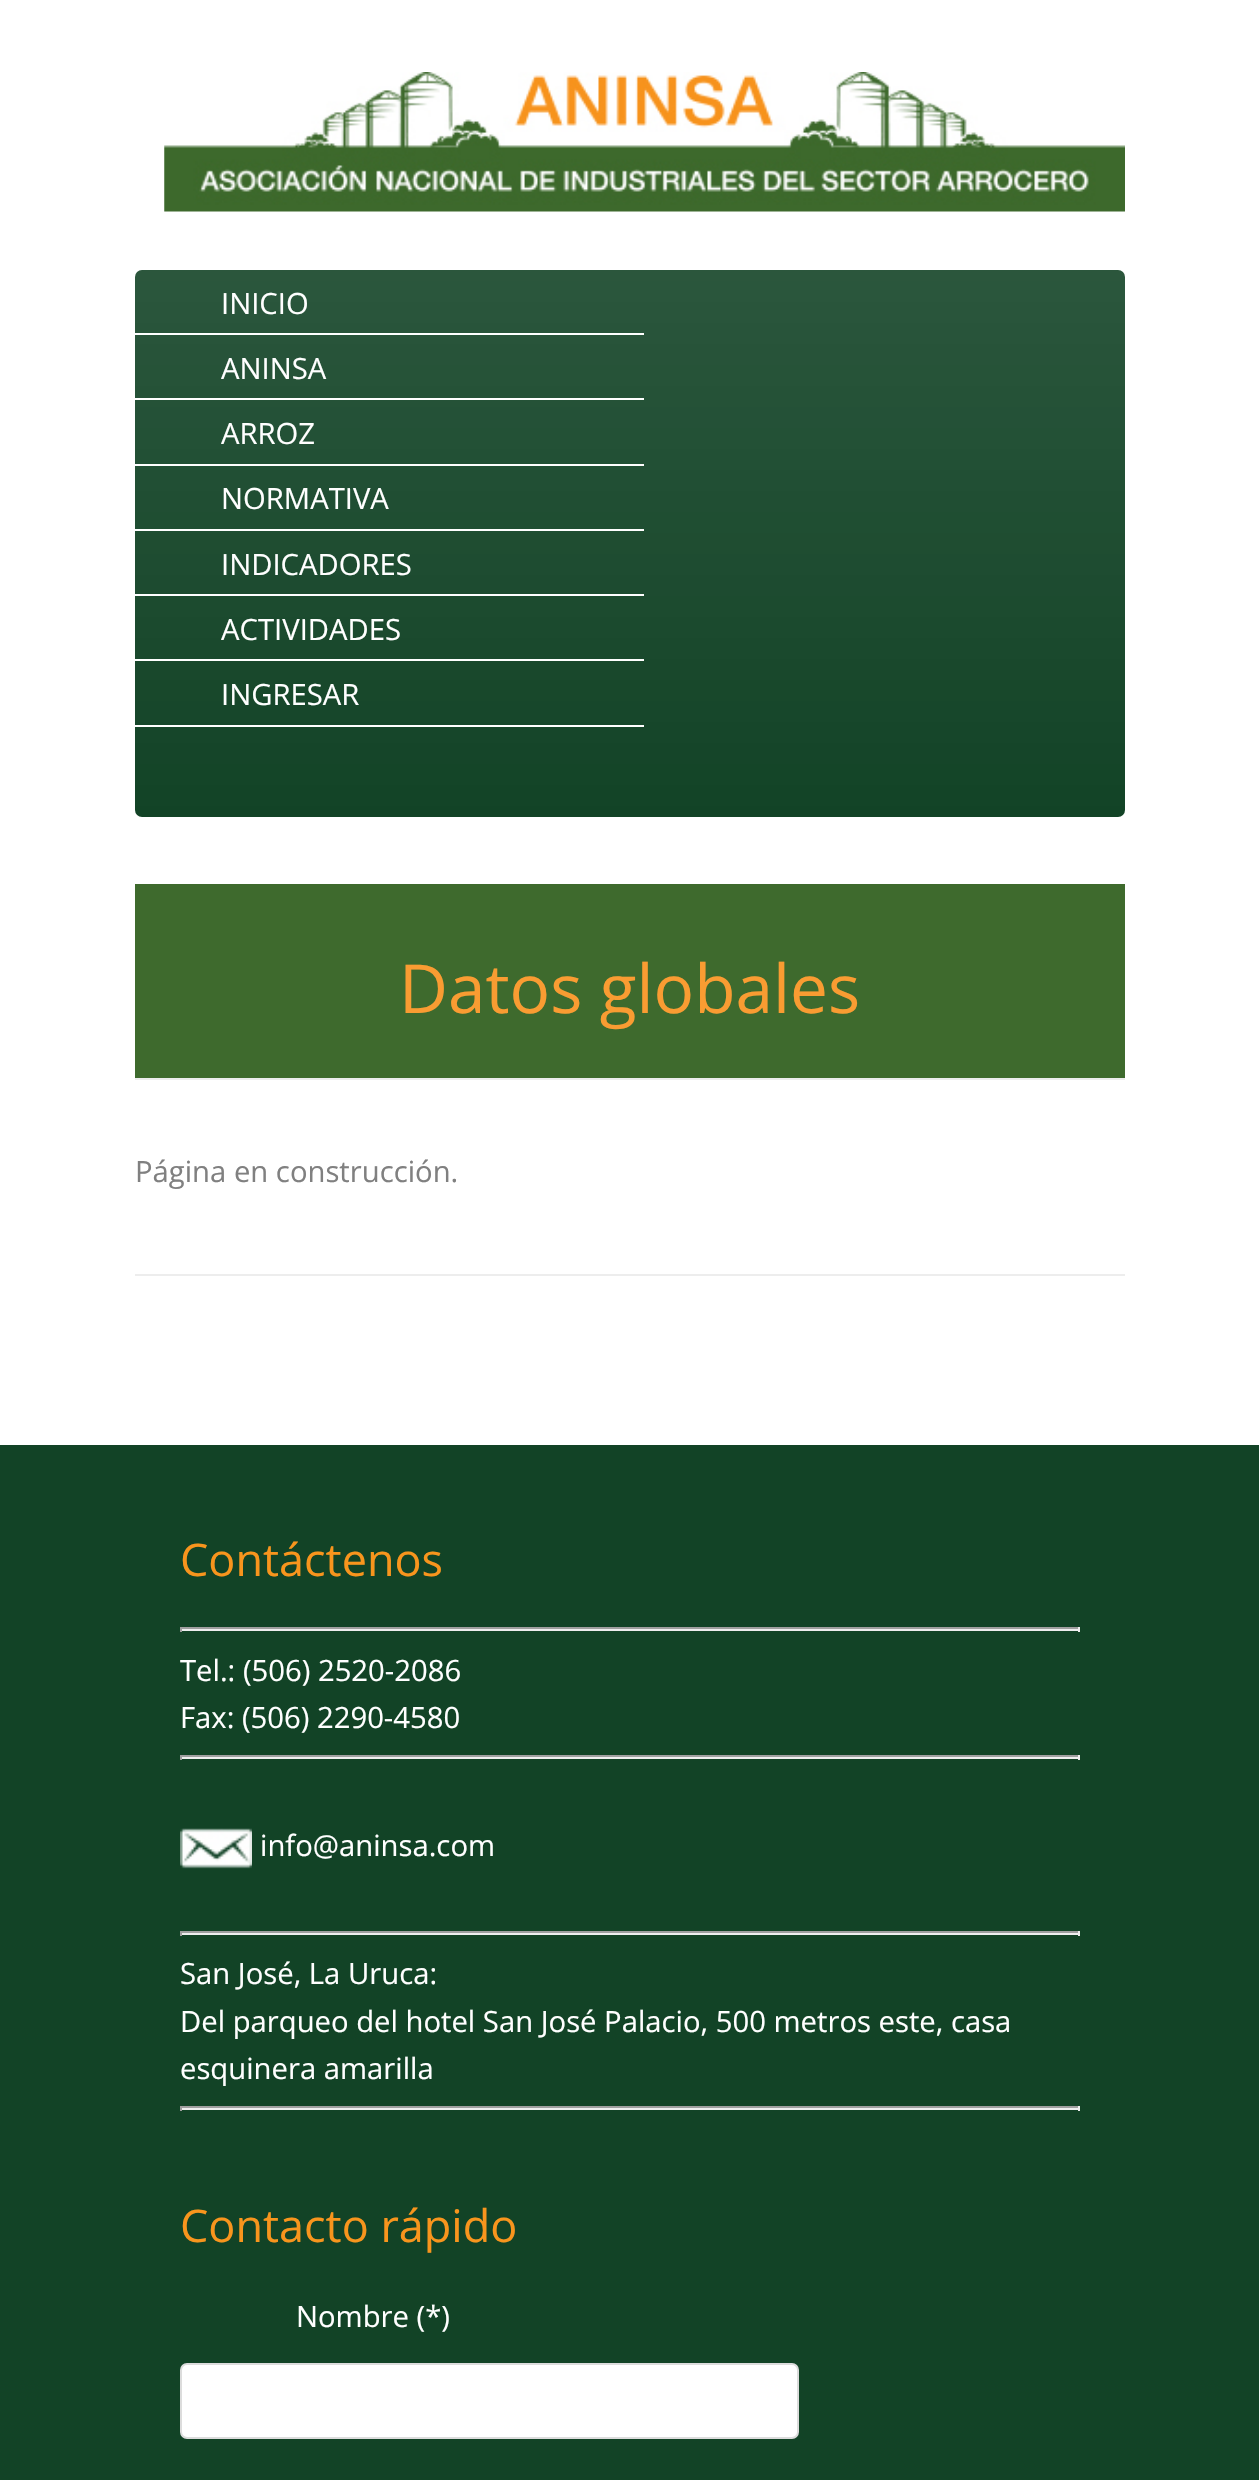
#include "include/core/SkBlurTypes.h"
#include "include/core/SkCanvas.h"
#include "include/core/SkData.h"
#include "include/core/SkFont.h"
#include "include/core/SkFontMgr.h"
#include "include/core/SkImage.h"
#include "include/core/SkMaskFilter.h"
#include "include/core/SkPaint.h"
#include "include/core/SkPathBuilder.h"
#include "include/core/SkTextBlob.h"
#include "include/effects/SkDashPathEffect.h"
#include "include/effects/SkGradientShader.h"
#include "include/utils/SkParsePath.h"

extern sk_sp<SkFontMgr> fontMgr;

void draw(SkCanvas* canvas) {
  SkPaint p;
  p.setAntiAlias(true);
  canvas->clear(SK_ColorWHITE);
  canvas->drawImageRect(SkImages::DeferredFromEncodedData(SkData::MakeFromFileName("images/1.png")), SkRect::MakeLTRB(164, 72, 1125, 212), SkSamplingOptions());
  p.setColor(SkColorSetRGB(18, 67, 38));
  canvas->drawRoundRect(SkRect::MakeLTRB(135, 270, 1125, 817), 7, 7, p);
  {
    const SkColor colors[] = {SkColorSetARGB(26, 255, 255, 255), SkColorSetARGB(0, 255, 255, 255)};
    const float stops[] = {0, 1};
    const SkPoint ends[] = {{630, 270}, {630, 817}};
    p.setShader(SkGradientShader::MakeLinear(ends, colors, stops, 2, SkTileMode::kClamp));
    p.setAlpha(255);
  }
  canvas->drawRoundRect(SkRect::MakeLTRB(135, 270, 1125, 817), 7, 7, p);
  p.setShader(nullptr);
  p.setColor(SK_ColorWHITE);
  canvas->drawRect(SkRect::MakeLTRB(135, 333, 644, 335), p);
  canvas->drawRect(SkRect::MakeLTRB(135, 398, 644, 400), p);
  canvas->drawRect(SkRect::MakeLTRB(135, 464, 644, 466), p);
  canvas->drawRect(SkRect::MakeLTRB(135, 529, 644, 531), p);
  canvas->drawRect(SkRect::MakeLTRB(135, 594, 644, 596), p);
  canvas->drawRect(SkRect::MakeLTRB(135, 659, 644, 661), p);
  canvas->drawRect(SkRect::MakeLTRB(135, 725, 644, 727), p);
  p.setColor(SkColorSetRGB(62, 106, 45));
  canvas->drawRect(SkRect::MakeLTRB(135, 884, 1125, 1078), p);
  p.setColor(SkColorSetRGB(237, 237, 237));
  canvas->drawRect(SkRect::MakeLTRB(135, 1078, 1125, 1080), p);
  canvas->drawRect(SkRect::MakeLTRB(135, 1274, 1125, 1276), p);
  p.setColor(SkColorSetRGB(18, 67, 38));
  canvas->drawRect(SkRect::MakeLTRB(0, 1445, 1259, 2480), p);
  p.setColor(SkColorSetRGB(159, 159, 159));
  canvas->drawRect(SkRect::MakeLTRB(180, 1627, 1080, 1629), p);
  p.setColor(SkColorSetRGB(238, 238, 238));
  canvas->drawRect(SkRect::MakeLTRB(1078, 1627, 1080, 1632), p);
  canvas->drawRect(SkRect::MakeLTRB(180, 1629, 1080, 1631), p);
  p.setColor(SkColorSetRGB(159, 159, 159));
  canvas->drawRect(SkRect::MakeLTRB(180, 1627, 182, 1632), p);
  canvas->drawRect(SkRect::MakeLTRB(180, 1755, 1080, 1757), p);
  p.setColor(SkColorSetRGB(238, 238, 238));
  canvas->drawRect(SkRect::MakeLTRB(1078, 1755, 1080, 1760), p);
  canvas->drawRect(SkRect::MakeLTRB(180, 1757, 1080, 1759), p);
  p.setColor(SkColorSetRGB(159, 159, 159));
  canvas->drawRect(SkRect::MakeLTRB(180, 1755, 182, 1760), p);
  canvas->drawImageRect(SkImages::DeferredFromEncodedData(SkData::MakeFromFileName("images/2.png")), SkRect::MakeLTRB(180, 1828, 252, 1869), SkSamplingOptions());
  canvas->drawRect(SkRect::MakeLTRB(180, 1931, 1080, 1933), p);
  p.setColor(SkColorSetRGB(238, 238, 238));
  canvas->drawRect(SkRect::MakeLTRB(1078, 1931, 1080, 1936), p);
  canvas->drawRect(SkRect::MakeLTRB(180, 1933, 1080, 1935), p);
  p.setColor(SkColorSetRGB(159, 159, 159));
  canvas->drawRect(SkRect::MakeLTRB(180, 1931, 182, 1936), p);
  canvas->drawRect(SkRect::MakeLTRB(180, 2106, 1080, 2108), p);
  p.setColor(SkColorSetRGB(238, 238, 238));
  canvas->drawRect(SkRect::MakeLTRB(1078, 2106, 1080, 2111), p);
  canvas->drawRect(SkRect::MakeLTRB(180, 2108, 1080, 2110), p);
  p.setColor(SkColorSetRGB(159, 159, 159));
  canvas->drawRect(SkRect::MakeLTRB(180, 2106, 182, 2111), p);
  p.setColor(SK_ColorWHITE);
  canvas->drawRoundRect(SkRect::MakeLTRB(181, 2364, 798, 2438), 6, 6, p);
  p.setStyle(SkPaint::kStroke_Style);
  p.setStrokeWidth(2);
  p.setColor(SkColorSetRGB(220, 220, 220));
  canvas->drawRoundRect(SkRect::MakeLTRB(181, 2364, 798, 2438), 6, 6, p);
  SkFont font1(fontMgr->matchFamilyStyle("Open Sans", SkFontStyle::Normal()), 29.25f);
  font1.setSubpixel(true);
  p.setStyle(SkPaint::kFill_Style);
  p.setColor(SK_ColorWHITE);
  canvas->drawString("INICIO", 221, 314, font1, p);
  canvas->drawString("ANINSA", 221, 379, font1, p);
  canvas->drawString("ARROZ", 221, 444, font1, p);
  canvas->drawString("NORMATIVA", 221, 509, font1, p);
  canvas->drawString("INDICADORES", 221, 575, font1, p);
  canvas->drawString("ACTIVIDADES", 221, 640, font1, p);
  canvas->drawString("INGRESAR", 221, 705, font1, p);
  SkFont font2(fontMgr->matchFamilyStyle("Open Sans", SkFontStyle::Normal()), 67.5f);
  font2.setSubpixel(true);
  p.setColor(SkColorSetRGB(249, 156, 50));
  canvas->drawString("Datos globales", 399, 1013, font2, p);
  p.setColor(SkColorSetRGB(128, 128, 128));
  canvas->drawString("Página en construcción.", 135, 1182, font1, p);
  SkFont font3(fontMgr->matchFamilyStyle("Open Sans", SkFontStyle::Normal()), 45);
  font3.setSubpixel(true);
  p.setColor(SkColorSetRGB(248, 149, 29));
  canvas->drawString("Contáctenos", 180, 1576, font3, p);
  p.setColor(SK_ColorWHITE);
  canvas->drawString("Tel.: (506) 2520-2086", 180, 1681, font1, p);
  canvas->drawString("Fax: (506) 2290-4580", 180, 1728, font1, p);
  canvas->drawString("info@aninsa.com", 260, 1856, font1, p);
  canvas->drawString("San José, La Uruca:", 180, 1984, font1, p);
  canvas->drawString("Del parqueo del hotel San José Palacio, 500 metros este, casa", 180, 2032, font1, p);
  canvas->drawString("esquinera amarilla", 180, 2079, font1, p);
  p.setColor(SkColorSetRGB(248, 149, 29));
  canvas->drawString("Contacto rápido", 180, 2242, font3, p);
  p.setColor(SK_ColorWHITE);
  canvas->drawString("Nombre (*)", 296, 2327, font1, p);
}
